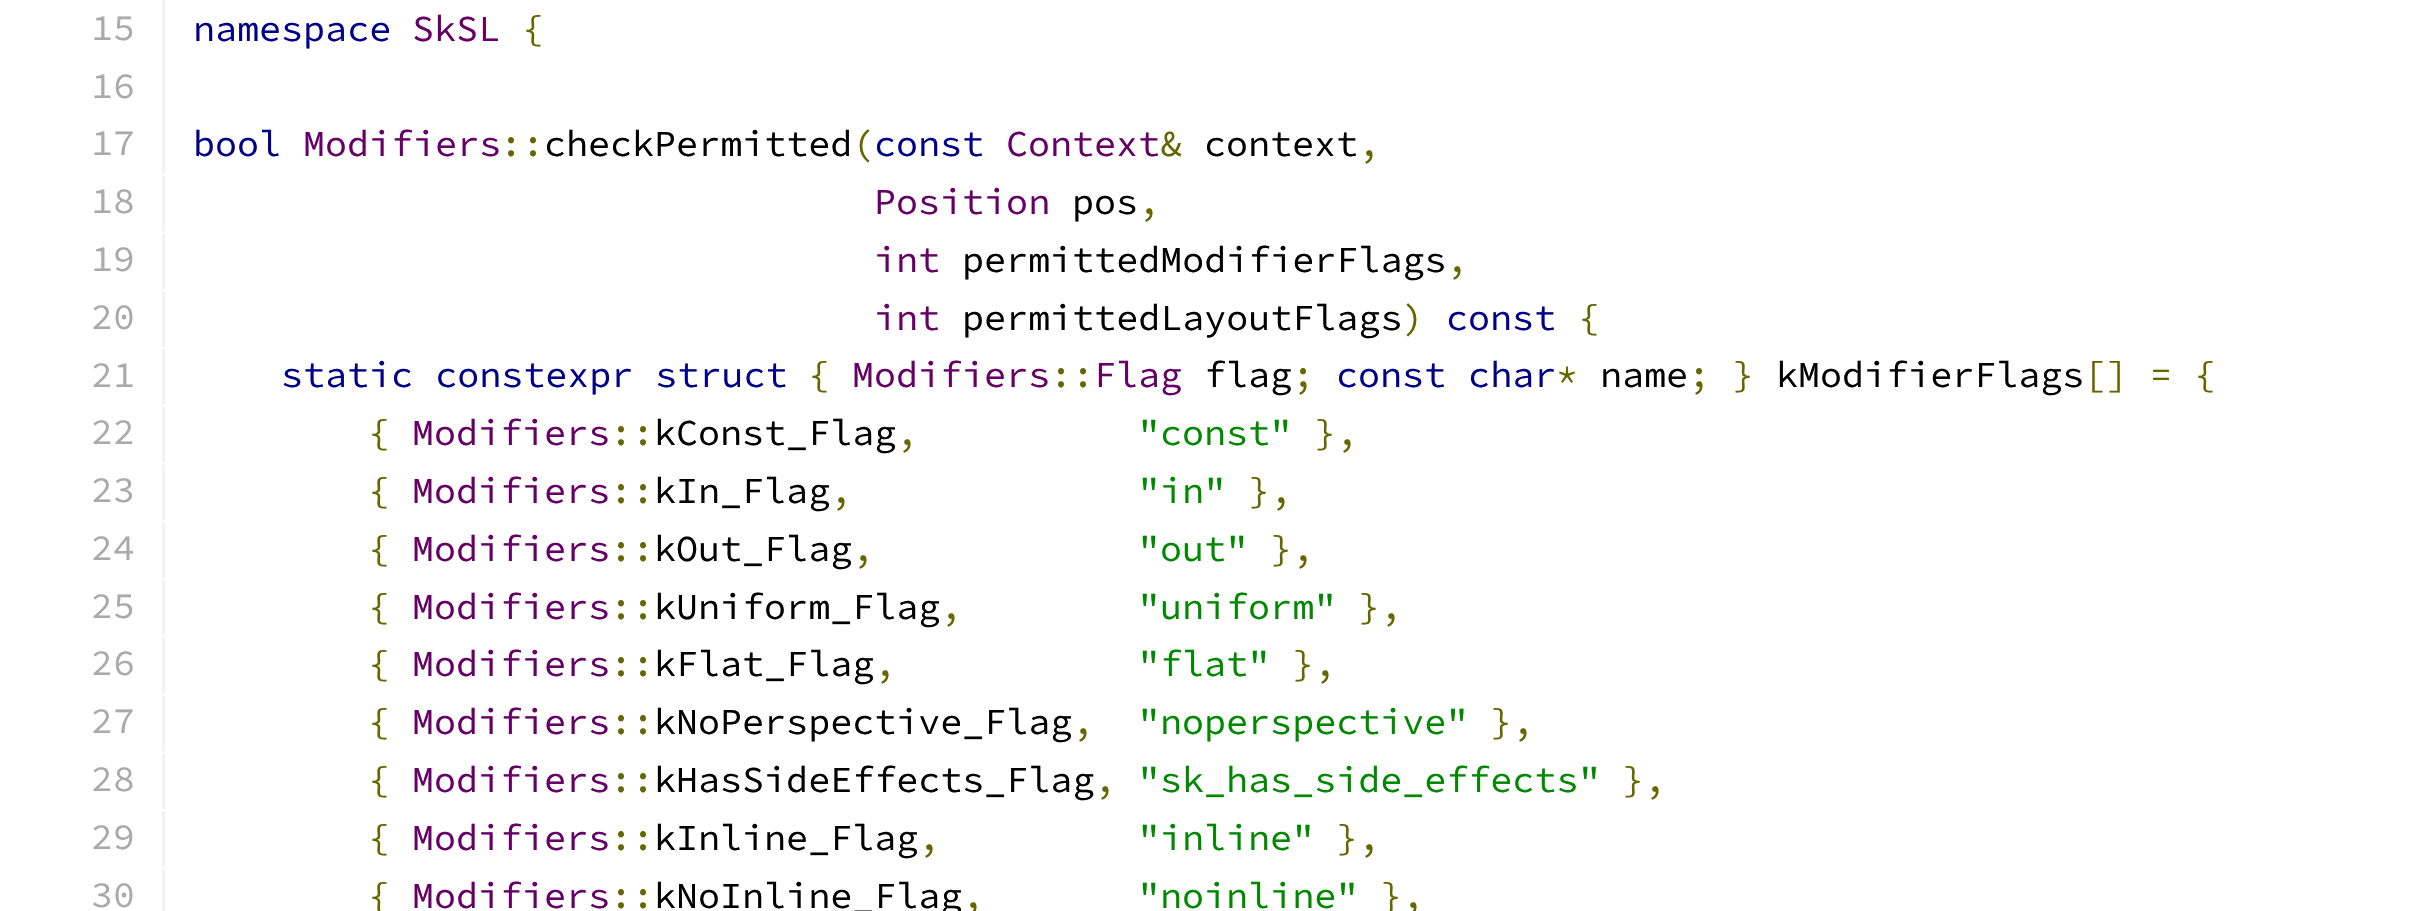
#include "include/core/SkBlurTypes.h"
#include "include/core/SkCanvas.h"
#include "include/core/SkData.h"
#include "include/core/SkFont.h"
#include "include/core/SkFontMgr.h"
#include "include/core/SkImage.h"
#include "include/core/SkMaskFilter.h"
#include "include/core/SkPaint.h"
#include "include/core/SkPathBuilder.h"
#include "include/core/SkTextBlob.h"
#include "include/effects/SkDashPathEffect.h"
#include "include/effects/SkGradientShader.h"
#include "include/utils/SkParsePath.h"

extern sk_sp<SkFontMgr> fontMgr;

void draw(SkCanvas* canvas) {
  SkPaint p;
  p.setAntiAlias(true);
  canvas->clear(SK_ColorWHITE);
  p.setColor(SkColorSetRGB(241, 242, 243));
  canvas->drawRect(SkRect::MakeLTRB(162, 0, 165, 173), p);
  canvas->drawRect(SkRect::MakeLTRB(162, 176, 165, 231), p);
  canvas->drawRect(SkRect::MakeLTRB(162, 234, 165, 289), p);
  canvas->drawRect(SkRect::MakeLTRB(162, 292, 165, 347), p);
  canvas->drawRect(SkRect::MakeLTRB(162, 349, 165, 404), p);
  canvas->drawRect(SkRect::MakeLTRB(162, 407, 165, 462), p);
  canvas->drawRect(SkRect::MakeLTRB(162, 465, 165, 520), p);
  canvas->drawRect(SkRect::MakeLTRB(162, 523, 165, 578), p);
  canvas->drawRect(SkRect::MakeLTRB(162, 580, 165, 635), p);
  canvas->drawRect(SkRect::MakeLTRB(162, 638, 165, 693), p);
  canvas->drawRect(SkRect::MakeLTRB(162, 696, 165, 751), p);
  canvas->drawRect(SkRect::MakeLTRB(162, 754, 165, 809), p);
  canvas->drawRect(SkRect::MakeLTRB(162, 811, 165, 866), p);
  canvas->drawRect(SkRect::MakeLTRB(162, 869, 165, 911), p);
  SkFont font1(fontMgr->matchFamilyStyle("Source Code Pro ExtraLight", SkFontStyle(200, SkFontStyle::kNormal_Width, SkFontStyle::kUpright_Slant)), 36.7f);
  font1.setSubpixel(true);
  p.setColor(SkColorSetRGB(170, 170, 170));
  canvas->drawString("15", 91, 40, font1, p);
  p.setColor(SkColorSetRGB(0, 0, 136));
  canvas->drawString("namespace", 193, 41, font1, p);
  p.setColor(SkColorSetRGB(102, 0, 102));
  canvas->drawString("SkSL", 412, 41, font1, p);
  p.setColor(SkColorSetRGB(102, 102, 0));
  canvas->drawString("{", 522, 41, font1, p);
  p.setColor(SkColorSetRGB(170, 170, 170));
  canvas->drawString("16", 91, 98, font1, p);
  canvas->drawString("17", 91, 155, font1, p);
  p.setColor(SkColorSetRGB(0, 0, 136));
  canvas->drawString("bool", 193, 156, font1, p);
  p.setColor(SkColorSetRGB(102, 0, 102));
  canvas->drawString("Modifiers", 303, 156, font1, p);
  p.setColor(SkColorSetRGB(102, 102, 0));
  canvas->drawString("::", 500, 156, font1, p);
  p.setColor(SK_ColorBLACK);
  canvas->drawString("checkPermitted", 544, 156, font1, p);
  p.setColor(SkColorSetRGB(102, 102, 0));
  canvas->drawString("(", 852, 156, font1, p);
  p.setColor(SkColorSetRGB(0, 0, 136));
  canvas->drawString("const", 874, 156, font1, p);
  p.setColor(SkColorSetRGB(102, 0, 102));
  canvas->drawString("Context", 1006, 156, font1, p);
  p.setColor(SkColorSetRGB(102, 102, 0));
  canvas->drawString("&", 1160, 156, font1, p);
  p.setColor(SK_ColorBLACK);
  canvas->drawString("context", 1204, 156, font1, p);
  p.setColor(SkColorSetRGB(102, 102, 0));
  canvas->drawString(",", 1358, 156, font1, p);
  p.setColor(SkColorSetRGB(170, 170, 170));
  canvas->drawString("18", 91, 213, font1, p);
  p.setColor(SkColorSetRGB(102, 0, 102));
  canvas->drawString("Position", 874, 214, font1, p);
  p.setColor(SK_ColorBLACK);
  canvas->drawString("pos", 1072, 214, font1, p);
  p.setColor(SkColorSetRGB(102, 102, 0));
  canvas->drawString(",", 1138, 214, font1, p);
  p.setColor(SkColorSetRGB(170, 170, 170));
  canvas->drawString("19", 91, 271, font1, p);
  p.setColor(SkColorSetRGB(102, 0, 102));
  canvas->drawString("int", 874, 272, font1, p);
  p.setColor(SK_ColorBLACK);
  canvas->drawString("permittedModifierFlags", 962, 272, font1, p);
  p.setColor(SkColorSetRGB(102, 102, 0));
  canvas->drawString(",", 1446, 272, font1, p);
  p.setColor(SkColorSetRGB(170, 170, 170));
  canvas->drawString("20", 91, 329, font1, p);
  p.setColor(SkColorSetRGB(102, 0, 102));
  canvas->drawString("int", 874, 330, font1, p);
  p.setColor(SK_ColorBLACK);
  canvas->drawString("permittedLayoutFlags", 962, 330, font1, p);
  p.setColor(SkColorSetRGB(102, 102, 0));
  canvas->drawString(")", 1402, 330, font1, p);
  p.setColor(SkColorSetRGB(0, 0, 136));
  canvas->drawString("const", 1446, 330, font1, p);
  p.setColor(SkColorSetRGB(102, 102, 0));
  canvas->drawString("{", 1578, 330, font1, p);
  p.setColor(SkColorSetRGB(170, 170, 170));
  canvas->drawString("21", 91, 387, font1, p);
  p.setColor(SkColorSetRGB(0, 0, 136));
  canvas->drawString("static constexpr struct", 281, 387, font1, p);
  p.setColor(SkColorSetRGB(102, 102, 0));
  canvas->drawString("{", 808, 387, font1, p);
  p.setColor(SkColorSetRGB(102, 0, 102));
  canvas->drawString("Modifiers", 852, 387, font1, p);
  p.setColor(SkColorSetRGB(102, 102, 0));
  canvas->drawString("::", 1050, 387, font1, p);
  p.setColor(SkColorSetRGB(102, 0, 102));
  canvas->drawString("Flag", 1094, 387, font1, p);
  p.setColor(SK_ColorBLACK);
  canvas->drawString("flag", 1204, 387, font1, p);
  p.setColor(SkColorSetRGB(102, 102, 0));
  canvas->drawString(";", 1292, 387, font1, p);
  p.setColor(SkColorSetRGB(0, 0, 136));
  canvas->drawString("const char", 1336, 387, font1, p);
  p.setColor(SkColorSetRGB(102, 102, 0));
  canvas->drawString("*", 1556, 387, font1, p);
  p.setColor(SK_ColorBLACK);
  canvas->drawString("name", 1600, 387, font1, p);
  p.setColor(SkColorSetRGB(102, 102, 0));
  canvas->drawString("; }", 1688, 387, font1, p);
  p.setColor(SK_ColorBLACK);
  canvas->drawString("kModifierFlags", 1776, 387, font1, p);
  p.setColor(SkColorSetRGB(102, 102, 0));
  canvas->drawString("[] = {", 2084, 387, font1, p);
  p.setColor(SkColorSetRGB(170, 170, 170));
  canvas->drawString("22", 91, 444, font1, p);
  p.setColor(SkColorSetRGB(102, 102, 0));
  canvas->drawString("{", 368, 445, font1, p);
  p.setColor(SkColorSetRGB(102, 0, 102));
  canvas->drawString("Modifiers", 412, 445, font1, p);
  p.setColor(SkColorSetRGB(102, 102, 0));
  canvas->drawString("::", 610, 445, font1, p);
  p.setColor(SK_ColorBLACK);
  canvas->drawString("kConst_Flag", 654, 445, font1, p);
  p.setColor(SkColorSetRGB(102, 102, 0));
  canvas->drawString(",", 896, 445, font1, p);
  p.setColor(SkColorSetRGB(0, 136, 0));
  canvas->drawString("\"const\"", 1138, 445, font1, p);
  p.setColor(SkColorSetRGB(102, 102, 0));
  canvas->drawString("},", 1314, 445, font1, p);
  p.setColor(SkColorSetRGB(170, 170, 170));
  canvas->drawString("23", 91, 502, font1, p);
  p.setColor(SkColorSetRGB(102, 102, 0));
  canvas->drawString("{", 368, 503, font1, p);
  p.setColor(SkColorSetRGB(102, 0, 102));
  canvas->drawString("Modifiers", 412, 503, font1, p);
  p.setColor(SkColorSetRGB(102, 102, 0));
  canvas->drawString("::", 610, 503, font1, p);
  p.setColor(SK_ColorBLACK);
  canvas->drawString("kIn_Flag", 654, 503, font1, p);
  p.setColor(SkColorSetRGB(102, 102, 0));
  canvas->drawString(",", 830, 503, font1, p);
  p.setColor(SkColorSetRGB(0, 136, 0));
  canvas->drawString("\"in\"", 1138, 503, font1, p);
  p.setColor(SkColorSetRGB(102, 102, 0));
  canvas->drawString("},", 1248, 503, font1, p);
  p.setColor(SkColorSetRGB(170, 170, 170));
  canvas->drawString("24", 91, 560, font1, p);
  p.setColor(SkColorSetRGB(102, 102, 0));
  canvas->drawString("{", 368, 561, font1, p);
  p.setColor(SkColorSetRGB(102, 0, 102));
  canvas->drawString("Modifiers", 412, 561, font1, p);
  p.setColor(SkColorSetRGB(102, 102, 0));
  canvas->drawString("::", 610, 561, font1, p);
  p.setColor(SK_ColorBLACK);
  canvas->drawString("kOut_Flag", 654, 561, font1, p);
  p.setColor(SkColorSetRGB(102, 102, 0));
  canvas->drawString(",", 852, 561, font1, p);
  p.setColor(SkColorSetRGB(0, 136, 0));
  canvas->drawString("\"out\"", 1138, 561, font1, p);
  p.setColor(SkColorSetRGB(102, 102, 0));
  canvas->drawString("},", 1270, 561, font1, p);
  p.setColor(SkColorSetRGB(170, 170, 170));
  canvas->drawString("25", 91, 618, font1, p);
  p.setColor(SkColorSetRGB(102, 102, 0));
  canvas->drawString("{", 368, 619, font1, p);
  p.setColor(SkColorSetRGB(102, 0, 102));
  canvas->drawString("Modifiers", 412, 619, font1, p);
  p.setColor(SkColorSetRGB(102, 102, 0));
  canvas->drawString("::", 610, 619, font1, p);
  p.setColor(SK_ColorBLACK);
  canvas->drawString("kUniform_Flag", 654, 619, font1, p);
  p.setColor(SkColorSetRGB(102, 102, 0));
  canvas->drawString(",", 940, 619, font1, p);
  p.setColor(SkColorSetRGB(0, 136, 0));
  canvas->drawString("\"uniform\"", 1138, 619, font1, p);
  p.setColor(SkColorSetRGB(102, 102, 0));
  canvas->drawString("},", 1358, 619, font1, p);
  p.setColor(SkColorSetRGB(170, 170, 170));
  canvas->drawString("26", 91, 675, font1, p);
  p.setColor(SkColorSetRGB(102, 102, 0));
  canvas->drawString("{", 368, 676, font1, p);
  p.setColor(SkColorSetRGB(102, 0, 102));
  canvas->drawString("Modifiers", 412, 676, font1, p);
  p.setColor(SkColorSetRGB(102, 102, 0));
  canvas->drawString("::", 610, 676, font1, p);
  p.setColor(SK_ColorBLACK);
  canvas->drawString("kFlat_Flag", 654, 676, font1, p);
  p.setColor(SkColorSetRGB(102, 102, 0));
  canvas->drawString(",", 874, 676, font1, p);
  p.setColor(SkColorSetRGB(0, 136, 0));
  canvas->drawString("\"flat\"", 1138, 676, font1, p);
  p.setColor(SkColorSetRGB(102, 102, 0));
  canvas->drawString("},", 1292, 676, font1, p);
  p.setColor(SkColorSetRGB(170, 170, 170));
  canvas->drawString("27", 91, 733, font1, p);
  p.setColor(SkColorSetRGB(102, 102, 0));
  canvas->drawString("{", 368, 734, font1, p);
  p.setColor(SkColorSetRGB(102, 0, 102));
  canvas->drawString("Modifiers", 412, 734, font1, p);
  p.setColor(SkColorSetRGB(102, 102, 0));
  canvas->drawString("::", 610, 734, font1, p);
  p.setColor(SK_ColorBLACK);
  canvas->drawString("kNoPerspective_Flag", 654, 734, font1, p);
  p.setColor(SkColorSetRGB(102, 102, 0));
  canvas->drawString(",", 1072, 734, font1, p);
  p.setColor(SkColorSetRGB(0, 136, 0));
  canvas->drawString("\"noperspective\"", 1138, 734, font1, p);
  p.setColor(SkColorSetRGB(102, 102, 0));
  canvas->drawString("},", 1490, 734, font1, p);
  p.setColor(SkColorSetRGB(170, 170, 170));
  canvas->drawString("28", 91, 791, font1, p);
  p.setColor(SkColorSetRGB(102, 102, 0));
  canvas->drawString("{", 368, 792, font1, p);
  p.setColor(SkColorSetRGB(102, 0, 102));
  canvas->drawString("Modifiers", 412, 792, font1, p);
  p.setColor(SkColorSetRGB(102, 102, 0));
  canvas->drawString("::", 610, 792, font1, p);
  p.setColor(SK_ColorBLACK);
  canvas->drawString("kHasSideEffects_Flag", 654, 792, font1, p);
  p.setColor(SkColorSetRGB(102, 102, 0));
  canvas->drawString(",", 1094, 792, font1, p);
  p.setColor(SkColorSetRGB(0, 136, 0));
  canvas->drawString("\"sk_has_side_effects\"", 1138, 792, font1, p);
  p.setColor(SkColorSetRGB(102, 102, 0));
  canvas->drawString("},", 1622, 792, font1, p);
  p.setColor(SkColorSetRGB(170, 170, 170));
  canvas->drawString("29", 91, 849, font1, p);
  p.setColor(SkColorSetRGB(102, 102, 0));
  canvas->drawString("{", 368, 850, font1, p);
  p.setColor(SkColorSetRGB(102, 0, 102));
  canvas->drawString("Modifiers", 412, 850, font1, p);
  p.setColor(SkColorSetRGB(102, 102, 0));
  canvas->drawString("::", 610, 850, font1, p);
  p.setColor(SK_ColorBLACK);
  canvas->drawString("kInline_Flag", 654, 850, font1, p);
  p.setColor(SkColorSetRGB(102, 102, 0));
  canvas->drawString(",", 918, 850, font1, p);
  p.setColor(SkColorSetRGB(0, 136, 0));
  canvas->drawString("\"inline\"", 1138, 850, font1, p);
  p.setColor(SkColorSetRGB(102, 102, 0));
  canvas->drawString("},", 1336, 850, font1, p);
  p.setColor(SkColorSetRGB(170, 170, 170));
  canvas->drawString("30", 91, 907, font1, p);
  p.setColor(SkColorSetRGB(102, 102, 0));
  canvas->drawString("{", 368, 908, font1, p);
  p.setColor(SkColorSetRGB(102, 0, 102));
  canvas->drawString("Modifiers", 412, 908, font1, p);
  p.setColor(SkColorSetRGB(102, 102, 0));
  canvas->drawString("::", 610, 908, font1, p);
  p.setColor(SK_ColorBLACK);
  canvas->drawString("kNoInline_Flag", 654, 908, font1, p);
  p.setColor(SkColorSetRGB(102, 102, 0));
  canvas->drawString(",", 962, 908, font1, p);
  p.setColor(SkColorSetRGB(0, 136, 0));
  canvas->drawString("\"noinline\"", 1138, 908, font1, p);
  p.setColor(SkColorSetRGB(102, 102, 0));
  canvas->drawString("},", 1380, 908, font1, p);
}
